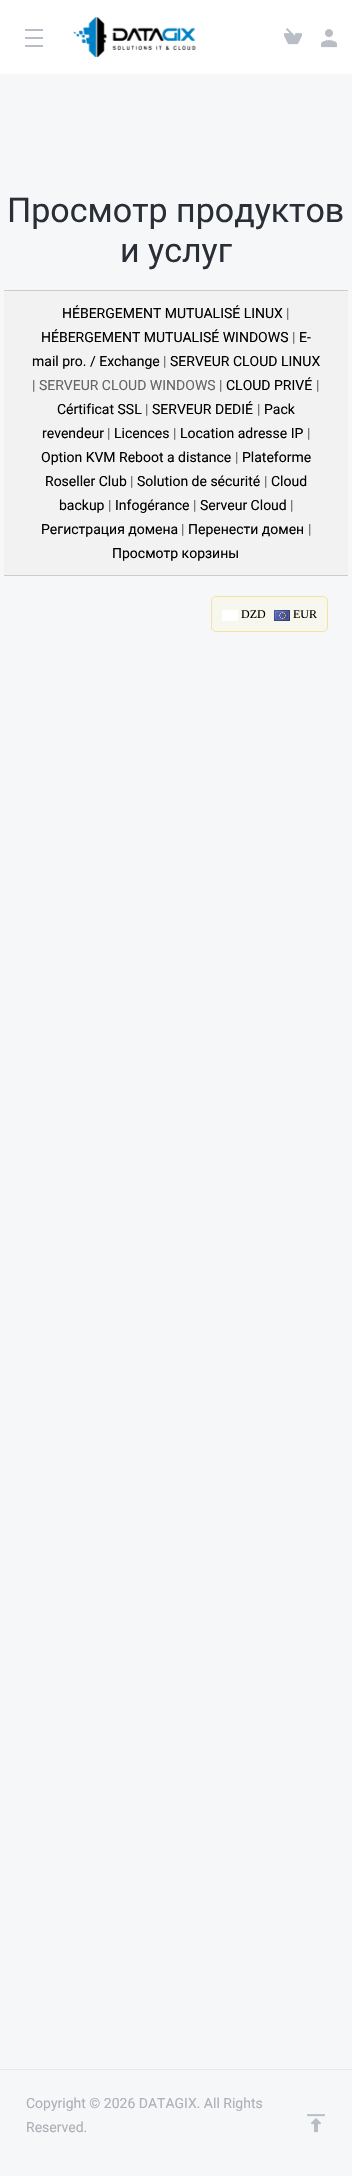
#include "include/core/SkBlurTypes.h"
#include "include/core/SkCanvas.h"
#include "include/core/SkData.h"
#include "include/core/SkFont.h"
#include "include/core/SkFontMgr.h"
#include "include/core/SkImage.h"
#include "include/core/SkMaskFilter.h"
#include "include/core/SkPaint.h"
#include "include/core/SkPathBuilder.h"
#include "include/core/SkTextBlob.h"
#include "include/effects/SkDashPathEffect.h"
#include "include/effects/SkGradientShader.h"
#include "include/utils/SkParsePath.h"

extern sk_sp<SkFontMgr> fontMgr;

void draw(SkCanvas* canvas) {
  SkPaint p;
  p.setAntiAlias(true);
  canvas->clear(SK_ColorWHITE);
  p.setColor(SkColorSetRGB(185, 189, 197));
  canvas->drawRect(SkRect::MakeLTRB(25, 29, 43, 31), p);
  canvas->drawRect(SkRect::MakeLTRB(25, 37, 43, 39), p);
  canvas->drawRect(SkRect::MakeLTRB(25, 45, 43, 47), p);
  canvas->drawImageRect(SkImages::DeferredFromEncodedData(SkData::MakeFromFileName("images/1.png")), SkRect::MakeLTRB(73, 17, 196, 57), SkSamplingOptions());
  canvas->drawImageRect(SkImages::DeferredFromEncodedData(SkData::MakeFromFileName("images/2.png")), SkRect::MakeLTRB(284, 28, 302, 45), SkSamplingOptions());
  canvas->drawImageRect(SkImages::DeferredFromEncodedData(SkData::MakeFromFileName("images/3.png")), SkRect::MakeLTRB(321, 29, 337, 48), SkSamplingOptions());
  p.setColor(SkColorSetRGB(246, 247, 248));
  canvas->drawRect(SkRect::MakeLTRB(0, 74, 352, 2069), p);
  p.setColor(SkColorSetRGB(242, 242, 242));
  canvas->drawRect(SkRect::MakeLTRB(4, 291, 348, 575), p);
  p.setColor(SkColorSetRGB(204, 204, 204));
  canvas->drawRect(SkRect::MakeLTRB(4, 290, 348, 291), p);
  canvas->drawRect(SkRect::MakeLTRB(4, 575, 348, 576), p);
  p.setColor(SkColorSetRGB(248, 247, 237));
  canvas->drawRoundRect(SkRect::MakeLTRB(211.5f, 596.5f, 327.5f, 631.5f), 4.5f, 4.5f, p);
  p.setStyle(SkPaint::kStroke_Style);
  p.setStrokeWidth(1);
  p.setColor(SkColorSetRGB(244, 227, 162));
  canvas->drawRoundRect(SkRect::MakeLTRB(211.5f, 596.5f, 327.5f, 631.5f), 4.5f, 4.5f, p);
  p.setStyle(SkPaint::kFill_Style);
  p.setColor(SK_ColorWHITE);
  canvas->drawRect(SkRect::MakeLTRB(222, 610, 238, 621), p);
  canvas->drawImageRect(SkImages::DeferredFromEncodedData(SkData::MakeFromFileName("images/4.png")), SkRect::MakeLTRB(274, 610, 290, 621), SkSamplingOptions());
  p.setColor(SkColorSetRGB(246, 247, 248));
  canvas->drawRect(SkRect::MakeLTRB(0, 2070, 352, 2176), p);
  p.setColor(SkColorSetRGB(230, 232, 236));
  canvas->drawRect(SkRect::MakeLTRB(0, 2069, 352, 2070), p);
  canvas->drawImageRect(SkImages::DeferredFromEncodedData(SkData::MakeFromFileName("images/5.png")), SkRect::MakeLTRB(307, 2114, 325, 2133), SkSamplingOptions());
  SkFont font1(fontMgr->matchFamilyStyle("Roboto", SkFontStyle::Normal()), 34);
  font1.setSubpixel(true);
  p.setColor(SkColorSetRGB(42, 46, 54));
  canvas->drawString("Просмотр продуктов", 7, 222, font1, p);
  canvas->drawString("и услуг", 120, 262, font1, p);
  SkFont font2(fontMgr->matchFamilyStyle("Roboto", SkFontStyle::Normal()), 14);
  font2.setSubpixel(true);
  p.setColor(SK_ColorBLACK);
  canvas->drawString("HÉBERGEMENT MUTUALISÉ LINUX", 62, 318, font2, p);
  p.setColor(SkColorSetRGB(102, 102, 102));
  canvas->drawString("|", 286, 318, font2, p);
  p.setColor(SK_ColorBLACK);
  canvas->drawString("HÉBERGEMENT MUTUALISÉ WINDOWS", 41, 342, font2, p);
  p.setColor(SkColorSetRGB(102, 102, 102));
  canvas->drawString("|", 292, 342, font2, p);
  p.setColor(SK_ColorBLACK);
  canvas->drawString("E-", 299, 342, font2, p);
  canvas->drawString("mail pro. / Exchange", 32, 366, font2, p);
  p.setColor(SkColorSetRGB(102, 102, 102));
  canvas->drawString("|", 163, 366, font2, p);
  p.setColor(SK_ColorBLACK);
  canvas->drawString("SERVEUR CLOUD LINUX", 170, 366, font2, p);
  p.setColor(SkColorSetRGB(102, 102, 102));
  canvas->drawString("| SERVEUR CLOUD WINDOWS |", 32, 390, font2, p);
  p.setColor(SK_ColorBLACK);
  canvas->drawString("CLOUD PRIVÉ", 226, 390, font2, p);
  p.setColor(SkColorSetRGB(102, 102, 102));
  canvas->drawString("|", 316, 390, font2, p);
  p.setColor(SK_ColorBLACK);
  canvas->drawString("Cértificat SSL", 57, 414, font2, p);
  p.setColor(SkColorSetRGB(102, 102, 102));
  canvas->drawString("|", 145, 414, font2, p);
  p.setColor(SK_ColorBLACK);
  canvas->drawString("SERVEUR DEDIÉ", 152, 414, font2, p);
  p.setColor(SkColorSetRGB(102, 102, 102));
  canvas->drawString("|", 257, 414, font2, p);
  p.setColor(SK_ColorBLACK);
  canvas->drawString("Pack", 264, 414, font2, p);
  canvas->drawString("revendeur", 42, 438, font2, p);
  p.setColor(SkColorSetRGB(102, 102, 102));
  canvas->drawString("|", 107, 438, font2, p);
  p.setColor(SK_ColorBLACK);
  canvas->drawString("Licences", 114, 438, font2, p);
  p.setColor(SkColorSetRGB(102, 102, 102));
  canvas->drawString("|", 173, 438, font2, p);
  p.setColor(SK_ColorBLACK);
  canvas->drawString("Location adresse IP", 180, 438, font2, p);
  p.setColor(SkColorSetRGB(102, 102, 102));
  canvas->drawString("|", 307, 438, font2, p);
  p.setColor(SK_ColorBLACK);
  canvas->drawString("Option KVM Reboot a distance", 41, 462, font2, p);
  p.setColor(SkColorSetRGB(102, 102, 102));
  canvas->drawString("|", 235, 462, font2, p);
  p.setColor(SK_ColorBLACK);
  canvas->drawString("Plateforme", 242, 462, font2, p);
  canvas->drawString("Roseller Club", 45, 486, font2, p);
  p.setColor(SkColorSetRGB(102, 102, 102));
  canvas->drawString("|", 130, 486, font2, p);
  p.setColor(SK_ColorBLACK);
  canvas->drawString("Solution de sécurité", 137, 486, font2, p);
  p.setColor(SkColorSetRGB(102, 102, 102));
  canvas->drawString("|", 264, 486, font2, p);
  p.setColor(SK_ColorBLACK);
  canvas->drawString("Cloud", 271, 486, font2, p);
  canvas->drawString("backup", 59, 510, font2, p);
  p.setColor(SkColorSetRGB(102, 102, 102));
  canvas->drawString("|", 108, 510, font2, p);
  p.setColor(SK_ColorBLACK);
  canvas->drawString("Infogérance", 115, 510, font2, p);
  p.setColor(SkColorSetRGB(102, 102, 102));
  canvas->drawString("|", 193, 510, font2, p);
  p.setColor(SK_ColorBLACK);
  canvas->drawString("Serveur Cloud", 200, 510, font2, p);
  p.setColor(SkColorSetRGB(102, 102, 102));
  canvas->drawString("|", 290, 510, font2, p);
  p.setColor(SK_ColorBLACK);
  canvas->drawString("Регистрация домена", 41, 534, font2, p);
  p.setColor(SkColorSetRGB(102, 102, 102));
  canvas->drawString("|", 181, 534, font2, p);
  p.setColor(SK_ColorBLACK);
  canvas->drawString("Перенести домен", 188, 534, font2, p);
  p.setColor(SkColorSetRGB(102, 102, 102));
  canvas->drawString("|", 308, 534, font2, p);
  p.setColor(SK_ColorBLACK);
  canvas->drawString("Просмотр корзины", 112, 558, font2, p);
  SkFont font3(fontMgr->matchFamilyStyle("Liberation Serif", SkFontStyle::Normal()), 12);
  font3.setSubpixel(true);
  canvas->drawString("DZD", 241, 618, font3, p);
  canvas->drawString("EUR", 293, 618, font3, p);
  p.setColor(SkColorSetRGB(172, 176, 184));
  canvas->drawString("Copyright © 2026 DATAGIX. All Rights", 26, 2108, font2, p);
  canvas->drawString("Reserved.", 26, 2132, font2, p);
}
